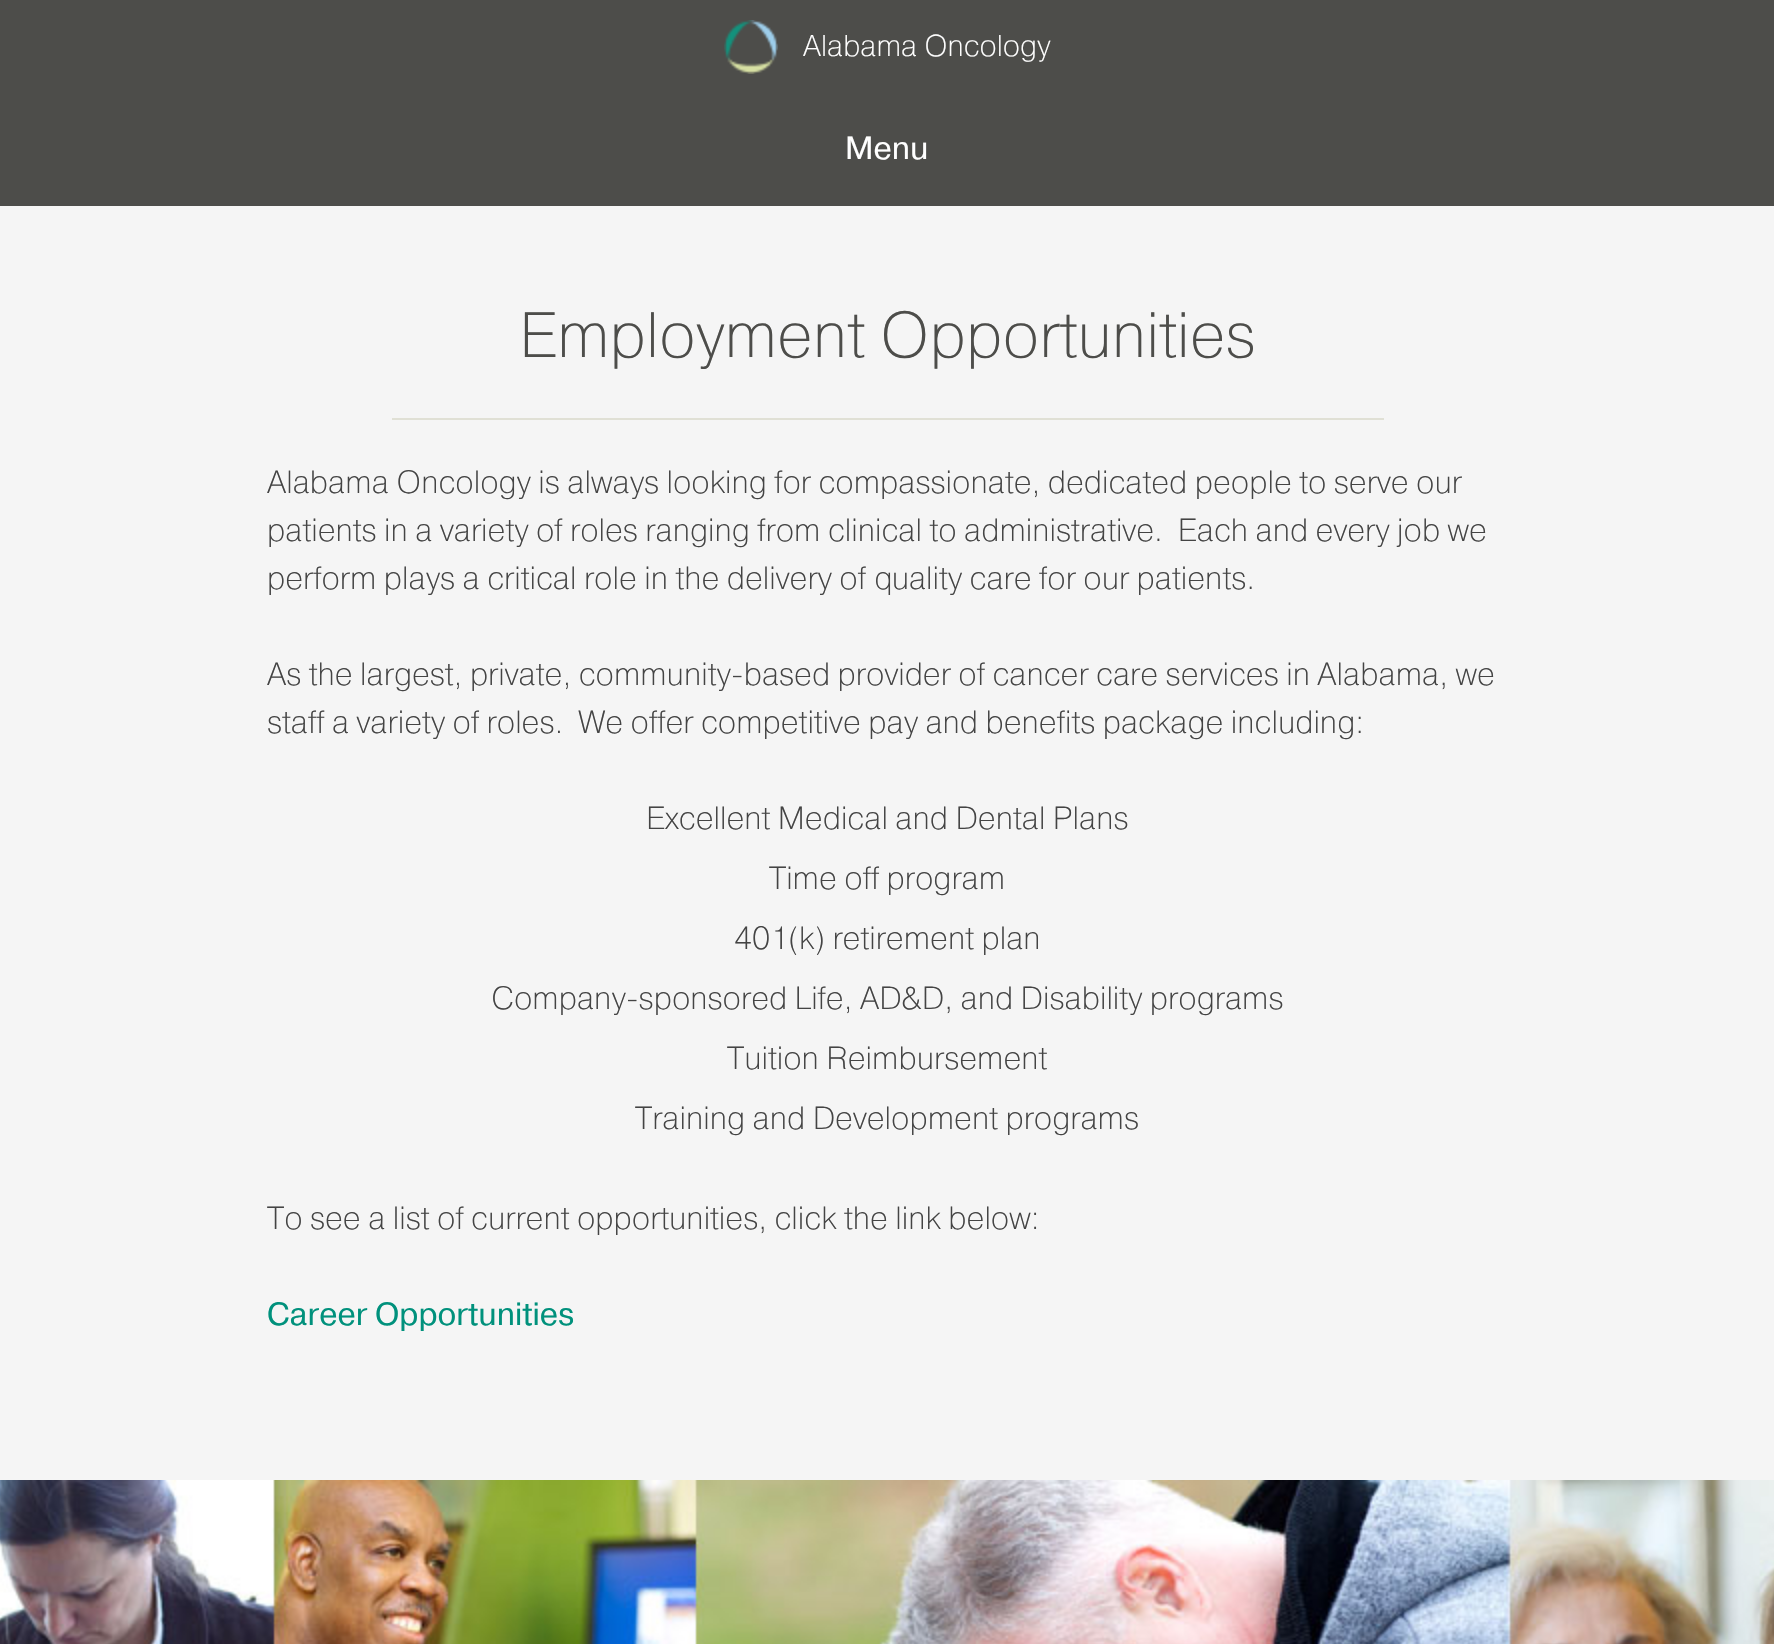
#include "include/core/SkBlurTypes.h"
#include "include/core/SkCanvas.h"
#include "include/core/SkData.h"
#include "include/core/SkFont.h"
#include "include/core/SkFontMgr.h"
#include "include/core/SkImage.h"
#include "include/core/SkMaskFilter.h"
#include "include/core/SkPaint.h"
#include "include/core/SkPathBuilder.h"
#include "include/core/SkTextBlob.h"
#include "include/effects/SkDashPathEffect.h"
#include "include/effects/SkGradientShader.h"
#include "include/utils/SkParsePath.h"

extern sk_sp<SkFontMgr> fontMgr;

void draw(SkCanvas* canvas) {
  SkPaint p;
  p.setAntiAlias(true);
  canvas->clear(SkColorSetRGB(245, 245, 245));
  p.setColor(SkColorSetRGB(77, 77, 74));
  canvas->drawRect(SkRect::MakeLTRB(0, 0, 1774, 206), p);
  canvas->drawImageRect(SkImages::DeferredFromEncodedData(SkData::MakeFromFileName("images/1.png")), SkRect::MakeLTRB(724, 20, 778, 74), SkSamplingOptions());
  p.setColor(SkColorSetRGB(224, 224, 213));
  canvas->drawRect(SkRect::MakeLTRB(392, 418, 1384, 420), p);
  canvas->drawImageRect(SkImages::DeferredFromEncodedData(SkData::MakeFromFileName("images/2.png")), SkRect::MakeLTRB(0, 1480, 1774, 1644), SkSamplingOptions());
  SkFont font1(fontMgr->matchFamilyStyle("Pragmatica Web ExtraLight", SkFontStyle(200, SkFontStyle::kNormal_Width, SkFontStyle::kUpright_Slant)), 30);
  font1.setSubpixel(true);
  p.setColor(SK_ColorWHITE);
  canvas->drawString("Alabama Oncology", 803, 56, font1, p);
  SkFont font2(fontMgr->matchFamilyStyle("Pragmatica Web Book", SkFontStyle::Normal()), 32);
  font2.setSubpixel(true);
  canvas->drawString("Menu", 845, 159, font2, p);
  SkFont font3(fontMgr->matchFamilyStyle("Pragmatica Web ExtraLight", SkFontStyle(200, SkFontStyle::kNormal_Width, SkFontStyle::kUpright_Slant)), 64);
  font3.setSubpixel(true);
  p.setColor(SkColorSetRGB(77, 77, 74));
  canvas->drawString("Employment Opportunities", 519, 357, font3, p);
  SkFont font4(fontMgr->matchFamilyStyle("Pragmatica Web ExtraLight", SkFontStyle(200, SkFontStyle::kNormal_Width, SkFontStyle::kUpright_Slant)), 32);
  font4.setSubpixel(true);
  p.setColor(SkColorSetRGB(68, 68, 68));
  canvas->drawString("Alabama Oncology is always looking for compassionate, dedicated people to serve our", 267, 493, font4, p);
  canvas->drawString("patients in a variety of roles ranging from clinical to administrative.  Each and every job we", 267, 541, font4, p);
  canvas->drawString("perform plays a critical role in the delivery of quality care for our patients.", 267, 589, font4, p);
  canvas->drawString("As the largest, private, community-based provider of cancer care services in Alabama, we", 267, 685, font4, p);
  canvas->drawString("staff a variety of roles.  We offer competitive pay and benefits package including:", 267, 733, font4, p);
  canvas->drawString("Excellent Medical and Dental Plans", 646, 829, font4, p);
  canvas->drawString("Time off program", 769, 889, font4, p);
  canvas->drawString("401(k) retirement plan", 734, 949, font4, p);
  canvas->drawString("Company-sponsored Life, AD&D, and Disability programs", 491, 1009, font4, p);
  canvas->drawString("Tuition Reimbursement", 727, 1069, font4, p);
  canvas->drawString("Training and Development programs", 635, 1129, font4, p);
  canvas->drawString("To see a list of current opportunities, click the link below:", 267, 1229, font4, p);
  p.setColor(SkColorSetRGB(0, 145, 124));
  canvas->drawString("Career Opportunities", 267, 1325, font2, p);
}
